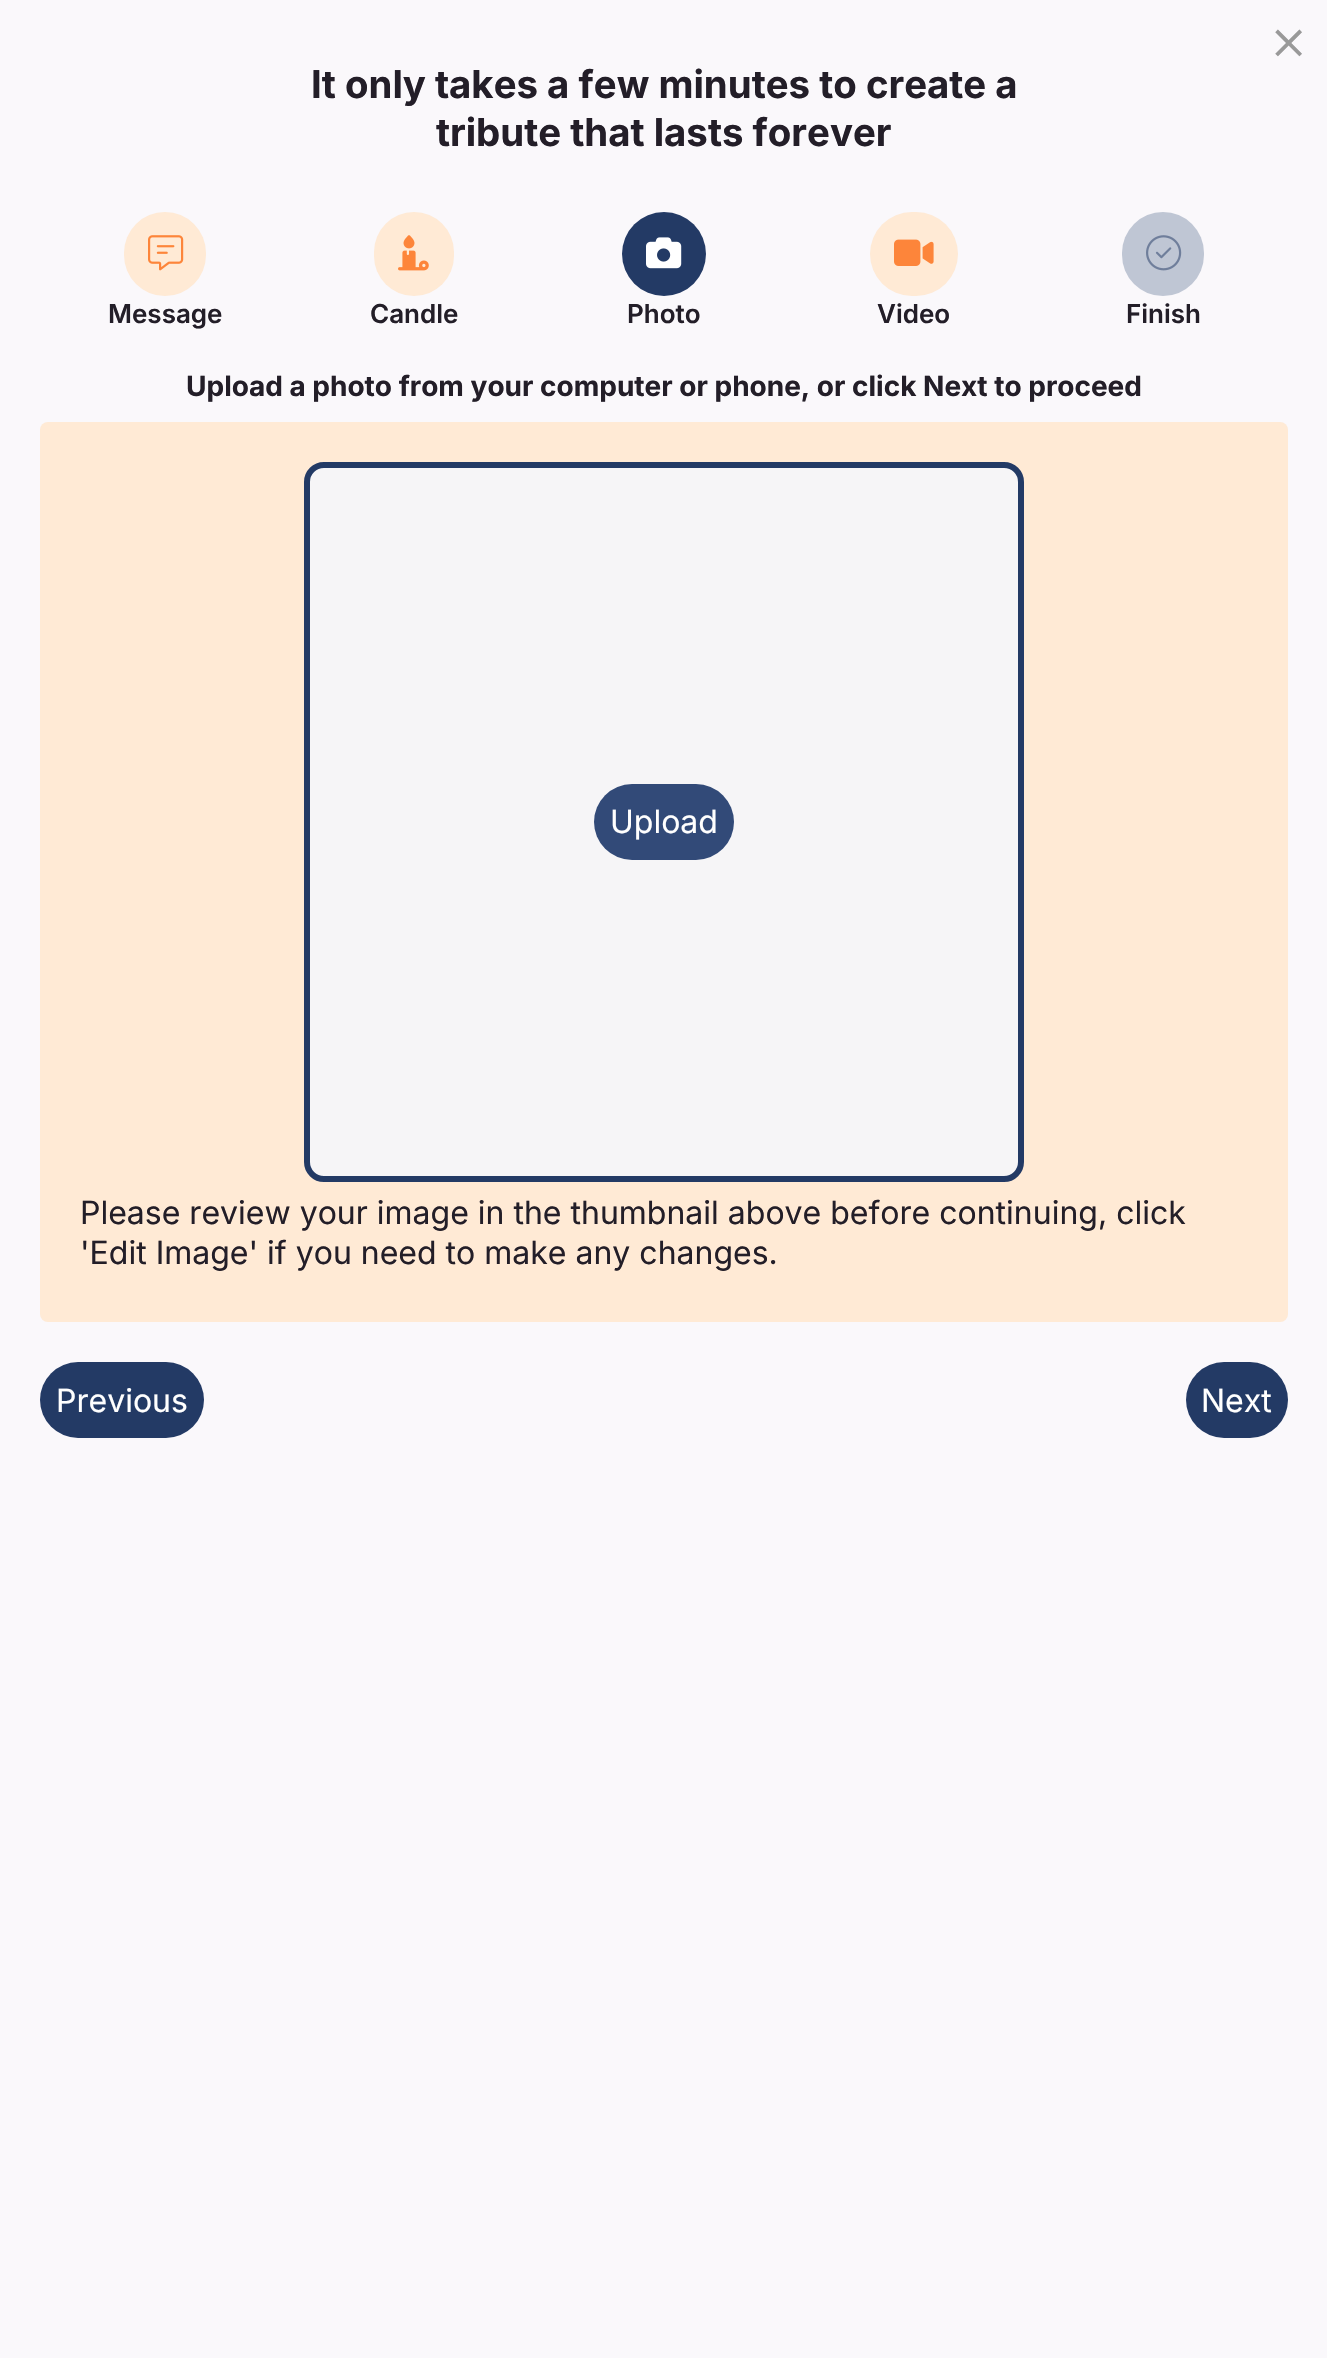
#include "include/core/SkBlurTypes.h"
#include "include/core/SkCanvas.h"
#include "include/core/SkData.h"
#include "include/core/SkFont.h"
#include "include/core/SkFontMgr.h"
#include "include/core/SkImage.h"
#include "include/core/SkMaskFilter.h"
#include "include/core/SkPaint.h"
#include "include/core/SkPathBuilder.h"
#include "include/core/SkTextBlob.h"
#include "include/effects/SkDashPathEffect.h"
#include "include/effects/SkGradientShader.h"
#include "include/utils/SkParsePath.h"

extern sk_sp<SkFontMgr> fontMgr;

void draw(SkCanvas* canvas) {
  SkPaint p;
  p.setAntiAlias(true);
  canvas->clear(SkColorSetRGB(250, 248, 251));
  p.setColor(SkColorSetRGB(255, 234, 213));
  canvas->drawRoundRect(SkRect::MakeLTRB(124, 212, 206, 296), 41, 41, p);
  canvas->drawImageRect(SkImages::DeferredFromEncodedData(SkData::MakeFromFileName("images/1.png")), SkRect::MakeLTRB(148, 235, 184, 271), SkSamplingOptions());
  canvas->drawRoundRect(SkRect::MakeLTRB(374, 212, 454, 296), 40, 40, p);
  canvas->drawImageRect(SkImages::DeferredFromEncodedData(SkData::MakeFromFileName("images/2.png")), SkRect::MakeLTRB(398, 235, 429, 271), SkSamplingOptions());
  p.setColor(SkColorSetRGB(35, 58, 101));
  canvas->drawCircle(664, 254, 42, p);
  canvas->drawImageRect(SkImages::DeferredFromEncodedData(SkData::MakeFromFileName("images/3.png")), SkRect::MakeLTRB(646, 237, 682, 269), SkSamplingOptions());
  p.setColor(SkColorSetRGB(255, 234, 213));
  canvas->drawRoundRect(SkRect::MakeLTRB(870, 212, 958, 296), 42, 42, p);
  canvas->drawImageRect(SkImages::DeferredFromEncodedData(SkData::MakeFromFileName("images/4.png")), SkRect::MakeLTRB(894, 239, 934, 266), SkSamplingOptions());
  p.setColor(SkColorSetRGB(191, 198, 212));
  canvas->drawRoundRect(SkRect::MakeLTRB(1122, 212, 1204, 296), 41, 41, p);
  canvas->drawImageRect(SkImages::DeferredFromEncodedData(SkData::MakeFromFileName("images/5.png")), SkRect::MakeLTRB(1146, 235, 1182, 271), SkSamplingOptions());
  p.setColor(SkColorSetRGB(255, 234, 213));
  canvas->drawRoundRect(SkRect::MakeLTRB(40, 422, 1288, 1322), 8, 8, p);
  p.setColor(SkColorSetRGB(246, 245, 247));
  canvas->drawRoundRect(SkRect::MakeLTRB(307, 465, 1021, 1179), 17, 17, p);
  p.setStyle(SkPaint::kStroke_Style);
  p.setStrokeWidth(6);
  p.setColor(SkColorSetRGB(35, 58, 101));
  canvas->drawRoundRect(SkRect::MakeLTRB(307, 465, 1021, 1179), 17, 17, p);
  p.setStyle(SkPaint::kFill_Style);
  p.setColor(SkColorSetRGB(50, 74, 120));
  canvas->drawRoundRect(SkRect::MakeLTRB(594, 784, 734, 860), 38, 38, p);
  p.setColor(SkColorSetRGB(35, 58, 101));
  canvas->drawRoundRect(SkRect::MakeLTRB(40, 1362, 204, 1438), 38, 38, p);
  canvas->drawRoundRect(SkRect::MakeLTRB(1186, 1362, 1288, 1438), 38, 38, p);
  SkFont font1(fontMgr->matchFamilyStyle("Inter", SkFontStyle(300, SkFontStyle::kNormal_Width, SkFontStyle::kUpright_Slant)), 60);
  font1.setSubpixel(true);
  p.setColor(SkColorSetRGB(153, 153, 153));
  canvas->drawString("×", 1269, 60, font1, p);
  SkFont font2(fontMgr->matchFamilyStyle("Inter", SkFontStyle::Bold()), 38.4f);
  font2.setSubpixel(true);
  p.setColor(SkColorSetRGB(35, 30, 40));
  canvas->drawString("It only takes a few minutes to create a", 311, 98, font2, p);
  canvas->drawString("tribute that lasts forever", 436, 146, font2, p);
  SkFont font3(fontMgr->matchFamilyStyle("Inter", SkFontStyle(600, SkFontStyle::kNormal_Width, SkFontStyle::kUpright_Slant)), 26);
  font3.setSubpixel(true);
  canvas->drawString("Message", 108, 323, font3, p);
  canvas->drawString("Candle", 370, 323, font3, p);
  canvas->drawString("Photo", 627, 323, font3, p);
  canvas->drawString("Video", 877, 323, font3, p);
  canvas->drawString("Finish", 1126, 323, font3, p);
  SkFont font4(fontMgr->matchFamilyStyle("Inter", SkFontStyle::Bold()), 28);
  font4.setSubpixel(true);
  canvas->drawString("Upload a photo from your computer or phone, or click Next to proceed", 186, 396, font4, p);
  SkFont font5(fontMgr->matchFamilyStyle("Inter", SkFontStyle::Normal()), 32);
  font5.setSubpixel(true);
  p.setColor(SK_ColorWHITE);
  canvas->drawString("Upload", 610, 833, font5, p);
  p.setColor(SkColorSetRGB(35, 30, 40));
  canvas->drawString("Please review your image in the thumbnail above before continuing, click", 80, 1224, font5, p);
  canvas->drawString("'Edit Image' if you need to make any changes.", 80, 1264, font5, p);
  p.setColor(SK_ColorWHITE);
  canvas->drawString("Previous", 56, 1412, font5, p);
  canvas->drawString("Next", 1201, 1412, font5, p);
}
